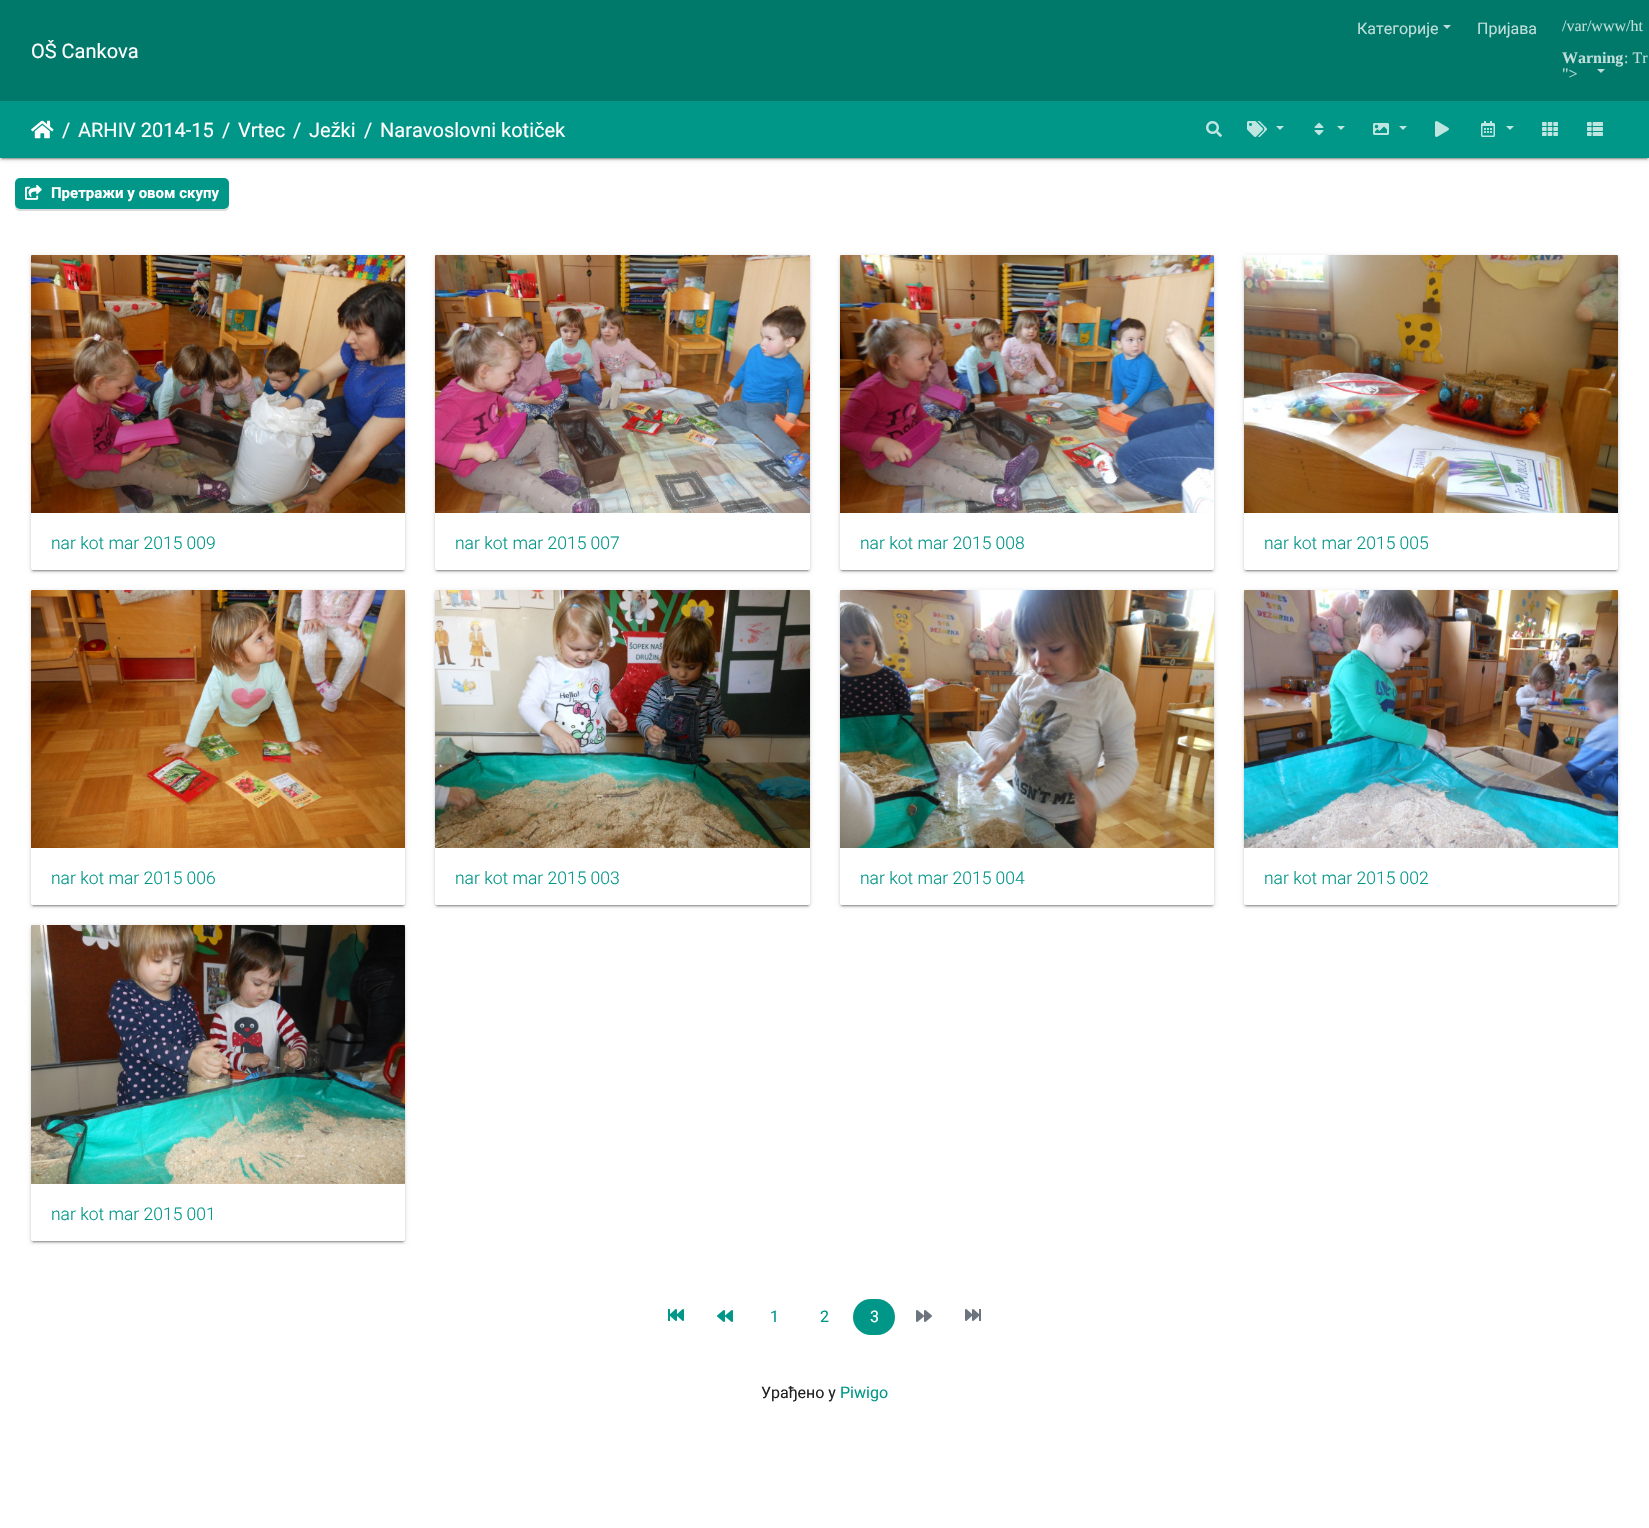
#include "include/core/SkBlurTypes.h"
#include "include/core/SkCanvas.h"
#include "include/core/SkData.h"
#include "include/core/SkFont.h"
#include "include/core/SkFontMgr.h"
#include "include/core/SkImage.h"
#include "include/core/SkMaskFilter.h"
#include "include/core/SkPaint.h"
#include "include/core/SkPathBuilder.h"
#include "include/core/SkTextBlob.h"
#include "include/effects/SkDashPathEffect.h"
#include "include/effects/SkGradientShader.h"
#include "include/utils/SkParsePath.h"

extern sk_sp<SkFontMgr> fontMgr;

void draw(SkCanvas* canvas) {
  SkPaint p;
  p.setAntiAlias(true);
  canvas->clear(SK_ColorWHITE);
  p.setColor(SkColorSetARGB(31, 0, 0, 0));
  p.setMaskFilter(SkMaskFilter::MakeBlur(kNormal_SkBlurStyle, 2.5f));
  canvas->drawRect(SkRect::MakeLTRB(0, 102, 1649, 159), p);
  p.setMaskFilter(nullptr);
  p.setColor(SkColorSetARGB(36, 0, 0, 0));
  p.setMaskFilter(SkMaskFilter::MakeBlur(kNormal_SkBlurStyle, 1));
  canvas->drawRect(SkRect::MakeLTRB(0, 103, 1649, 160), p);
  p.setMaskFilter(nullptr);
  p.setColor(SkColorSetRGB(0, 121, 107));
  canvas->drawRect(SkRect::MakeLTRB(0, 0, 1649, 101), p);
  p.setColor(SkColorSetRGB(191, 222, 218));
  canvas->drawPath(SkPathBuilder().moveTo(1443, 25).lineTo(1451, 25).lineTo(1447, 29).close().detach(), p);
  canvas->drawPath(SkPathBuilder().moveTo(1597, 69).lineTo(1605, 69).lineTo(1601, 73).close().detach(), p);
  p.setColor(SkColorSetARGB(51, 0, 0, 0));
  p.setMaskFilter(SkMaskFilter::MakeBlur(kNormal_SkBlurStyle, 0.5f));
  canvas->drawRect(SkRect::MakeLTRB(2, 106, 1647, 159), p);
  p.setMaskFilter(nullptr);
  p.setColor(SkColorSetRGB(0, 150, 136));
  canvas->drawRect(SkRect::MakeLTRB(0, 101, 1649, 158), p);
  canvas->drawImageRect(SkImages::DeferredFromEncodedData(SkData::MakeFromFileName("images/1.png")), SkRect::MakeLTRB(31, 120, 54, 139), SkSamplingOptions());
  canvas->drawImageRect(SkImages::DeferredFromEncodedData(SkData::MakeFromFileName("images/2.png")), SkRect::MakeLTRB(1206, 121, 1222, 137), SkSamplingOptions());
  canvas->drawImageRect(SkImages::DeferredFromEncodedData(SkData::MakeFromFileName("images/3.png")), SkRect::MakeLTRB(1247, 121, 1267, 137), SkSamplingOptions());
  p.setColor(SkColorSetRGB(191, 229, 225));
  canvas->drawPath(SkPathBuilder().moveTo(1276, 126).lineTo(1284, 126).lineTo(1280, 130).close().detach(), p);
  canvas->drawImageRect(SkImages::DeferredFromEncodedData(SkData::MakeFromFileName("images/4.png")), SkRect::MakeLTRB(1314, 122, 1324, 136), SkSamplingOptions());
  canvas->drawPath(SkPathBuilder().moveTo(1337, 126).lineTo(1345, 126).lineTo(1341, 130).close().detach(), p);
  canvas->drawImageRect(SkImages::DeferredFromEncodedData(SkData::MakeFromFileName("images/5.png")), SkRect::MakeLTRB(1373, 123, 1389, 135), SkSamplingOptions());
  canvas->drawPath(SkPathBuilder().moveTo(1399, 126).lineTo(1407, 126).lineTo(1403, 130).close().detach(), p);
  canvas->drawImageRect(SkImages::DeferredFromEncodedData(SkData::MakeFromFileName("images/6.png")), SkRect::MakeLTRB(1435, 121, 1449, 137), SkSamplingOptions());
  canvas->drawImageRect(SkImages::DeferredFromEncodedData(SkData::MakeFromFileName("images/7.png")), SkRect::MakeLTRB(1481, 121, 1495, 137), SkSamplingOptions());
  canvas->drawPath(SkPathBuilder().moveTo(1506, 126).lineTo(1514, 126).lineTo(1510, 130).close().detach(), p);
  canvas->drawImageRect(SkImages::DeferredFromEncodedData(SkData::MakeFromFileName("images/8.png")), SkRect::MakeLTRB(1542, 122, 1558, 136), SkSamplingOptions());
  canvas->drawImageRect(SkImages::DeferredFromEncodedData(SkData::MakeFromFileName("images/9.png")), SkRect::MakeLTRB(1587, 122, 1603, 136), SkSamplingOptions());
  p.setColor(SkColorSetRGB(219, 219, 219));
  canvas->drawPath(SkPathBuilder().moveTo(15, 204).lineTo(15, 206).cubicTo(15, 209, 17, 211, 20, 211).lineTo(224, 211).cubicTo(227, 211, 229, 209, 229, 206).lineTo(229, 204).cubicTo(229, 207, 227, 209, 224, 209).lineTo(20, 209).cubicTo(17, 209, 15, 207, 15, 204).close().detach(), p);
  p.setColor(SkColorSetRGB(0, 150, 136));
  canvas->drawRoundRect(SkRect::MakeLTRB(15, 178, 229, 209), 5, 5, p);
  canvas->drawImageRect(SkImages::DeferredFromEncodedData(SkData::MakeFromFileName("images/10.png")), SkRect::MakeLTRB(25, 184, 42, 200), SkSamplingOptions());
  p.setColor(SkColorSetARGB(31, 0, 0, 0));
  p.setMaskFilter(SkMaskFilter::MakeBlur(kNormal_SkBlurStyle, 2.5f));
  canvas->drawRoundRect(SkRect::MakeLTRB(31, 256, 405, 571), 2, 2, p);
  p.setMaskFilter(nullptr);
  p.setColor(SkColorSetARGB(51, 0, 0, 0));
  p.setMaskFilter(SkMaskFilter::MakeBlur(kNormal_SkBlurStyle, 0.5f));
  canvas->drawRect(SkRect::MakeLTRB(33, 260, 403, 571), p);
  p.setMaskFilter(nullptr);
  p.setColor(SkColorSetARGB(36, 0, 0, 0));
  p.setMaskFilter(SkMaskFilter::MakeBlur(kNormal_SkBlurStyle, 1));
  canvas->drawRoundRect(SkRect::MakeLTRB(31, 257, 405, 572), 2, 2, p);
  p.setMaskFilter(nullptr);
  p.setColor(SK_ColorWHITE);
  canvas->drawRoundRect(SkRect::MakeLTRB(31, 255, 405, 570), 2, 2, p);
  canvas->drawImageRect(SkImages::DeferredFromEncodedData(SkData::MakeFromFileName("images/11.png")), SkRect::MakeLTRB(31, 255, 405, 513), SkSamplingOptions());
  p.setColor(SkColorSetARGB(31, 0, 0, 0));
  p.setMaskFilter(SkMaskFilter::MakeBlur(kNormal_SkBlurStyle, 2.5f));
  canvas->drawRoundRect(SkRect::MakeLTRB(435, 256, 810, 571), 2, 2, p);
  p.setMaskFilter(nullptr);
  p.setColor(SkColorSetARGB(51, 0, 0, 0));
  p.setMaskFilter(SkMaskFilter::MakeBlur(kNormal_SkBlurStyle, 0.5f));
  canvas->drawRect(SkRect::MakeLTRB(437, 260, 808, 571), p);
  p.setMaskFilter(nullptr);
  p.setColor(SkColorSetARGB(36, 0, 0, 0));
  p.setMaskFilter(SkMaskFilter::MakeBlur(kNormal_SkBlurStyle, 1));
  canvas->drawRoundRect(SkRect::MakeLTRB(435, 257, 810, 572), 2, 2, p);
  p.setMaskFilter(nullptr);
  p.setColor(SK_ColorWHITE);
  canvas->drawRoundRect(SkRect::MakeLTRB(435, 255, 810, 570), 2, 2, p);
  canvas->drawImageRect(SkImages::DeferredFromEncodedData(SkData::MakeFromFileName("images/12.png")), SkRect::MakeLTRB(435, 255, 810, 513), SkSamplingOptions());
  p.setColor(SkColorSetARGB(31, 0, 0, 0));
  p.setMaskFilter(SkMaskFilter::MakeBlur(kNormal_SkBlurStyle, 2.5f));
  canvas->drawRoundRect(SkRect::MakeLTRB(840, 256, 1214, 571), 2, 2, p);
  p.setMaskFilter(nullptr);
  p.setColor(SkColorSetARGB(51, 0, 0, 0));
  p.setMaskFilter(SkMaskFilter::MakeBlur(kNormal_SkBlurStyle, 0.5f));
  canvas->drawRect(SkRect::MakeLTRB(842, 260, 1212, 571), p);
  p.setMaskFilter(nullptr);
  p.setColor(SkColorSetARGB(36, 0, 0, 0));
  p.setMaskFilter(SkMaskFilter::MakeBlur(kNormal_SkBlurStyle, 1));
  canvas->drawRoundRect(SkRect::MakeLTRB(840, 257, 1214, 572), 2, 2, p);
  p.setMaskFilter(nullptr);
  p.setColor(SK_ColorWHITE);
  canvas->drawRoundRect(SkRect::MakeLTRB(840, 255, 1214, 570), 2, 2, p);
  canvas->drawImageRect(SkImages::DeferredFromEncodedData(SkData::MakeFromFileName("images/13.png")), SkRect::MakeLTRB(840, 255, 1214, 513), SkSamplingOptions());
  p.setColor(SkColorSetARGB(31, 0, 0, 0));
  p.setMaskFilter(SkMaskFilter::MakeBlur(kNormal_SkBlurStyle, 2.5f));
  canvas->drawRoundRect(SkRect::MakeLTRB(1244, 256, 1618, 571), 2, 2, p);
  p.setMaskFilter(nullptr);
  p.setColor(SkColorSetARGB(51, 0, 0, 0));
  p.setMaskFilter(SkMaskFilter::MakeBlur(kNormal_SkBlurStyle, 0.5f));
  canvas->drawRect(SkRect::MakeLTRB(1246, 260, 1616, 571), p);
  p.setMaskFilter(nullptr);
  p.setColor(SkColorSetARGB(36, 0, 0, 0));
  p.setMaskFilter(SkMaskFilter::MakeBlur(kNormal_SkBlurStyle, 1));
  canvas->drawRoundRect(SkRect::MakeLTRB(1244, 257, 1618, 572), 2, 2, p);
  p.setMaskFilter(nullptr);
  p.setColor(SK_ColorWHITE);
  canvas->drawRoundRect(SkRect::MakeLTRB(1244, 255, 1618, 570), 2, 2, p);
  canvas->drawImageRect(SkImages::DeferredFromEncodedData(SkData::MakeFromFileName("images/14.png")), SkRect::MakeLTRB(1244, 255, 1618, 513), SkSamplingOptions());
  p.setColor(SkColorSetARGB(31, 0, 0, 0));
  p.setMaskFilter(SkMaskFilter::MakeBlur(kNormal_SkBlurStyle, 2.5f));
  canvas->drawRoundRect(SkRect::MakeLTRB(31, 591, 405, 906), 2, 2, p);
  p.setMaskFilter(nullptr);
  p.setColor(SkColorSetARGB(51, 0, 0, 0));
  p.setMaskFilter(SkMaskFilter::MakeBlur(kNormal_SkBlurStyle, 0.5f));
  canvas->drawRect(SkRect::MakeLTRB(33, 595, 403, 906), p);
  p.setMaskFilter(nullptr);
  p.setColor(SkColorSetARGB(36, 0, 0, 0));
  p.setMaskFilter(SkMaskFilter::MakeBlur(kNormal_SkBlurStyle, 1));
  canvas->drawRoundRect(SkRect::MakeLTRB(31, 592, 405, 907), 2, 2, p);
  p.setMaskFilter(nullptr);
  p.setColor(SK_ColorWHITE);
  canvas->drawRoundRect(SkRect::MakeLTRB(31, 590, 405, 905), 2, 2, p);
  canvas->drawImageRect(SkImages::DeferredFromEncodedData(SkData::MakeFromFileName("images/15.png")), SkRect::MakeLTRB(31, 590, 405, 848), SkSamplingOptions());
  p.setColor(SkColorSetARGB(31, 0, 0, 0));
  p.setMaskFilter(SkMaskFilter::MakeBlur(kNormal_SkBlurStyle, 2.5f));
  canvas->drawRoundRect(SkRect::MakeLTRB(435, 591, 810, 906), 2, 2, p);
  p.setMaskFilter(nullptr);
  p.setColor(SkColorSetARGB(51, 0, 0, 0));
  p.setMaskFilter(SkMaskFilter::MakeBlur(kNormal_SkBlurStyle, 0.5f));
  canvas->drawRect(SkRect::MakeLTRB(437, 595, 808, 906), p);
  p.setMaskFilter(nullptr);
  p.setColor(SkColorSetARGB(36, 0, 0, 0));
  p.setMaskFilter(SkMaskFilter::MakeBlur(kNormal_SkBlurStyle, 1));
  canvas->drawRoundRect(SkRect::MakeLTRB(435, 592, 810, 907), 2, 2, p);
  p.setMaskFilter(nullptr);
  p.setColor(SK_ColorWHITE);
  canvas->drawRoundRect(SkRect::MakeLTRB(435, 590, 810, 905), 2, 2, p);
  canvas->drawImageRect(SkImages::DeferredFromEncodedData(SkData::MakeFromFileName("images/16.png")), SkRect::MakeLTRB(435, 590, 810, 848), SkSamplingOptions());
  p.setColor(SkColorSetARGB(31, 0, 0, 0));
  p.setMaskFilter(SkMaskFilter::MakeBlur(kNormal_SkBlurStyle, 2.5f));
  canvas->drawRoundRect(SkRect::MakeLTRB(840, 591, 1214, 906), 2, 2, p);
  p.setMaskFilter(nullptr);
  p.setColor(SkColorSetARGB(51, 0, 0, 0));
  p.setMaskFilter(SkMaskFilter::MakeBlur(kNormal_SkBlurStyle, 0.5f));
  canvas->drawRect(SkRect::MakeLTRB(842, 595, 1212, 906), p);
  p.setMaskFilter(nullptr);
  p.setColor(SkColorSetARGB(36, 0, 0, 0));
  p.setMaskFilter(SkMaskFilter::MakeBlur(kNormal_SkBlurStyle, 1));
  canvas->drawRoundRect(SkRect::MakeLTRB(840, 592, 1214, 907), 2, 2, p);
  p.setMaskFilter(nullptr);
  p.setColor(SK_ColorWHITE);
  canvas->drawRoundRect(SkRect::MakeLTRB(840, 590, 1214, 905), 2, 2, p);
  canvas->drawImageRect(SkImages::DeferredFromEncodedData(SkData::MakeFromFileName("images/17.png")), SkRect::MakeLTRB(840, 590, 1214, 848), SkSamplingOptions());
  p.setColor(SkColorSetARGB(31, 0, 0, 0));
  p.setMaskFilter(SkMaskFilter::MakeBlur(kNormal_SkBlurStyle, 2.5f));
  canvas->drawRoundRect(SkRect::MakeLTRB(1244, 591, 1618, 906), 2, 2, p);
  p.setMaskFilter(nullptr);
  p.setColor(SkColorSetARGB(51, 0, 0, 0));
  p.setMaskFilter(SkMaskFilter::MakeBlur(kNormal_SkBlurStyle, 0.5f));
  canvas->drawRect(SkRect::MakeLTRB(1246, 595, 1616, 906), p);
  p.setMaskFilter(nullptr);
  p.setColor(SkColorSetARGB(36, 0, 0, 0));
  p.setMaskFilter(SkMaskFilter::MakeBlur(kNormal_SkBlurStyle, 1));
  canvas->drawRoundRect(SkRect::MakeLTRB(1244, 592, 1618, 907), 2, 2, p);
  p.setMaskFilter(nullptr);
  p.setColor(SK_ColorWHITE);
  canvas->drawRoundRect(SkRect::MakeLTRB(1244, 590, 1618, 905), 2, 2, p);
  canvas->drawImageRect(SkImages::DeferredFromEncodedData(SkData::MakeFromFileName("images/18.png")), SkRect::MakeLTRB(1244, 590, 1618, 848), SkSamplingOptions());
  p.setColor(SkColorSetARGB(31, 0, 0, 0));
  p.setMaskFilter(SkMaskFilter::MakeBlur(kNormal_SkBlurStyle, 2.5f));
  canvas->drawRoundRect(SkRect::MakeLTRB(31, 926, 405, 1242), 2, 2, p);
  p.setMaskFilter(nullptr);
  p.setColor(SkColorSetARGB(51, 0, 0, 0));
  p.setMaskFilter(SkMaskFilter::MakeBlur(kNormal_SkBlurStyle, 0.5f));
  canvas->drawRect(SkRect::MakeLTRB(33, 930, 403, 1242), p);
  p.setMaskFilter(nullptr);
  p.setColor(SkColorSetARGB(36, 0, 0, 0));
  p.setMaskFilter(SkMaskFilter::MakeBlur(kNormal_SkBlurStyle, 1));
  canvas->drawRoundRect(SkRect::MakeLTRB(31, 927, 405, 1243), 2, 2, p);
  p.setMaskFilter(nullptr);
  p.setColor(SK_ColorWHITE);
  canvas->drawRoundRect(SkRect::MakeLTRB(31, 925, 405, 1241), 2, 2, p);
  canvas->drawImageRect(SkImages::DeferredFromEncodedData(SkData::MakeFromFileName("images/19.png")), SkRect::MakeLTRB(31, 925, 405, 1184), SkSamplingOptions());
  canvas->drawImageRect(SkImages::DeferredFromEncodedData(SkData::MakeFromFileName("images/20.png")), SkRect::MakeLTRB(668, 1309, 684, 1321), SkSamplingOptions());
  canvas->drawImageRect(SkImages::DeferredFromEncodedData(SkData::MakeFromFileName("images/21.png")), SkRect::MakeLTRB(717, 1310, 733, 1322), SkSamplingOptions());
  p.setColor(SkColorSetRGB(0, 150, 136));
  canvas->drawRoundRect(SkRect::MakeLTRB(853, 1299, 895, 1335), 18, 18, p);
  canvas->drawImageRect(SkImages::DeferredFromEncodedData(SkData::MakeFromFileName("images/22.png")), SkRect::MakeLTRB(916, 1310, 932, 1322), SkSamplingOptions());
  canvas->drawImageRect(SkImages::DeferredFromEncodedData(SkData::MakeFromFileName("images/23.png")), SkRect::MakeLTRB(965, 1309, 981, 1321), SkSamplingOptions());
  SkFont font1(fontMgr->matchFamilyStyle("Roboto", SkFontStyle::Normal()), 20);
  font1.setSubpixel(true);
  p.setColor(SK_ColorWHITE);
  canvas->drawString("OŠ Cankova", 31, 58, font1, p);
  SkFont font2(fontMgr->matchFamilyStyle("Roboto", SkFontStyle::Normal()), 16);
  font2.setSubpixel(true);
  p.setColor(SkColorSetRGB(191, 222, 218));
  canvas->drawString("Категорије", 1357, 34, font2, p);
  canvas->drawString("Пријава", 1477, 34, font2, p);
  SkFont font3(fontMgr->matchFamilyStyle("Liberation Serif", SkFontStyle::Normal()), 16);
  font3.setSubpixel(true);
  canvas->drawString("/var/www/ht", 1562, 31, font3, p);
  SkFont font4(fontMgr->matchFamilyStyle("Liberation Serif", SkFontStyle::Bold()), 16);
  font4.setSubpixel(true);
  canvas->drawString("Warning", 1562, 63, font4, p);
  canvas->drawString(": Tr", 1624, 63, font3, p);
  canvas->drawString("\">", 1562, 79, font3, p);
  p.setColor(SK_ColorWHITE);
  canvas->drawString("/", 62, 137, font1, p);
  canvas->drawString("ARHIV 2014-15", 78, 137, font1, p);
  canvas->drawString("/", 222, 137, font1, p);
  canvas->drawString("Vrtec", 238, 137, font1, p);
  canvas->drawString("/", 293, 137, font1, p);
  canvas->drawString("Ježki", 309, 137, font1, p);
  canvas->drawString("/", 364, 137, font1, p);
  canvas->drawString("Naravoslovni kotiček", 380, 137, font1, p);
  SkFont font5(fontMgr->matchFamilyStyle("Roboto", SkFontStyle::Bold()), 15);
  font5.setSubpixel(true);
  canvas->drawString("Претражи у овом скупу", 51, 198, font5, p);
  SkFont font6(fontMgr->matchFamilyStyle("Roboto", SkFontStyle(300, SkFontStyle::kNormal_Width, SkFontStyle::kUpright_Slant)), 17.5f);
  font6.setSubpixel(true);
  p.setColor(SkColorSetRGB(0, 150, 136));
  canvas->drawString("nar kot mar 2015 009", 51, 549, font6, p);
  canvas->drawString("nar kot mar 2015 007", 455, 549, font6, p);
  canvas->drawString("nar kot mar 2015 008", 860, 549, font6, p);
  canvas->drawString("nar kot mar 2015 005", 1264, 549, font6, p);
  canvas->drawString("nar kot mar 2015 006", 51, 884, font6, p);
  canvas->drawString("nar kot mar 2015 003", 455, 884, font6, p);
  canvas->drawString("nar kot mar 2015 004", 860, 884, font6, p);
  canvas->drawString("nar kot mar 2015 002", 1264, 884, font6, p);
  canvas->drawString("nar kot mar 2015 001", 51, 1220, font6, p);
  canvas->drawString("1", 770, 1322, font2, p);
  canvas->drawString("2", 820, 1322, font2, p);
  p.setColor(SK_ColorWHITE);
  canvas->drawString("3", 870, 1322, font2, p);
  p.setColor(SkColorSetRGB(33, 33, 33));
  canvas->drawString("Урађено у", 761, 1398, font2, p);
  p.setColor(SkColorSetRGB(0, 150, 136));
  canvas->drawString("Piwigo", 840, 1398, font2, p);
}
